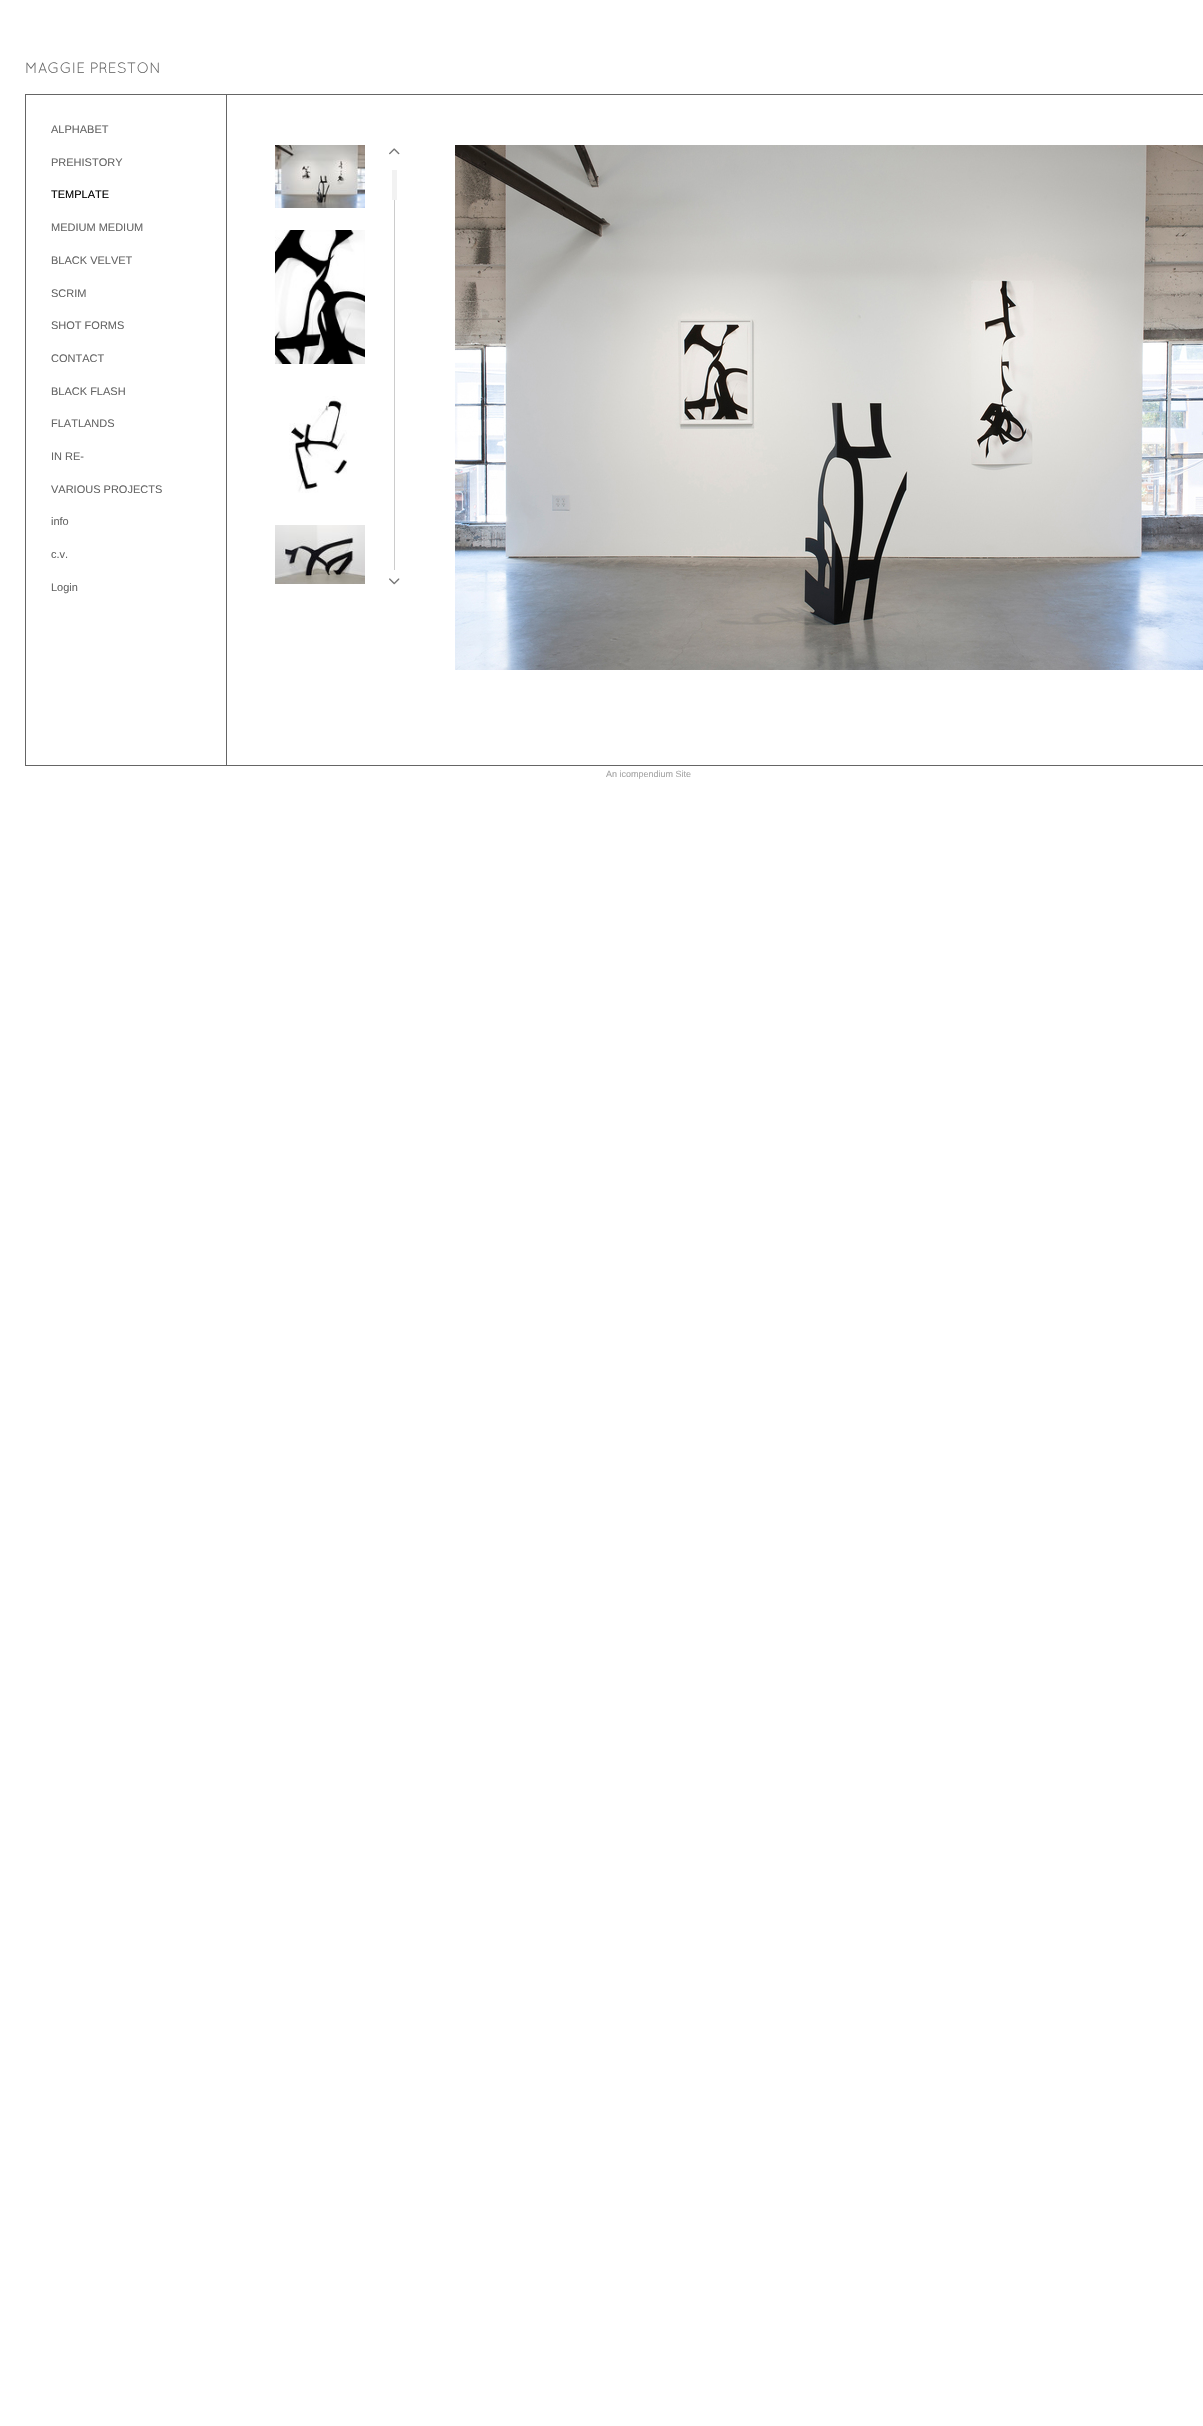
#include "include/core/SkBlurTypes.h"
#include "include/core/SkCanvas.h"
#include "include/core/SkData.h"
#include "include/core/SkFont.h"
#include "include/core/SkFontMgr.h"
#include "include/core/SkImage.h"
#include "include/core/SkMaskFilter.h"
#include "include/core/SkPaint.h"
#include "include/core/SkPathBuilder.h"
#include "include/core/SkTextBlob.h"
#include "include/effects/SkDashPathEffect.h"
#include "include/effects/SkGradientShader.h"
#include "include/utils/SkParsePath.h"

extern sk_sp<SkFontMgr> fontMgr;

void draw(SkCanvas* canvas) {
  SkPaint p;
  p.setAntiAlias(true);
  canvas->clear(SK_ColorWHITE);
  p.setStyle(SkPaint::kStroke_Style);
  p.setStrokeWidth(1);
  p.setColor(SkColorSetRGB(101, 101, 101));
  canvas->drawRect(SkRect::MakeLTRB(25.5f, 94.5f, 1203.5f, 765.5f), p);
  p.setStyle(SkPaint::kFill_Style);
  canvas->drawRect(SkRect::MakeLTRB(226, 95, 227, 765), p);
  canvas->drawImageRect(SkImages::DeferredFromEncodedData(SkData::MakeFromFileName("images/1.png")), SkRect::MakeLTRB(275, 145, 365, 208), SkSamplingOptions());
  canvas->drawImageRect(SkImages::DeferredFromEncodedData(SkData::MakeFromFileName("images/2.png")), SkRect::MakeLTRB(275, 230, 365, 364), SkSamplingOptions());
  canvas->drawImageRect(SkImages::DeferredFromEncodedData(SkData::MakeFromFileName("images/3.png")), SkRect::MakeLTRB(289, 396, 347, 493), SkSamplingOptions());
  canvas->drawImageRect(SkImages::DeferredFromEncodedData(SkData::MakeFromFileName("images/4.png")), SkRect::MakeLTRB(275, 525, 365, 584), SkSamplingOptions());
  canvas->drawImageRect(SkImages::DeferredFromEncodedData(SkData::MakeFromFileName("images/5.png")), SkRect::MakeLTRB(389, 148, 400, 155), SkSamplingOptions());
  p.setColor(SkColorSetRGB(242, 242, 242));
  canvas->drawRect(SkRect::MakeLTRB(392, 170, 397, 200), p);
  p.setColor(SkColorSetRGB(204, 204, 204));
  canvas->drawRect(SkRect::MakeLTRB(394, 200, 395, 570), p);
  canvas->drawImageRect(SkImages::DeferredFromEncodedData(SkData::MakeFromFileName("images/6.png")), SkRect::MakeLTRB(389, 578, 400, 585), SkSamplingOptions());
  canvas->drawImageRect(SkImages::DeferredFromEncodedData(SkData::MakeFromFileName("images/7.png")), SkRect::MakeLTRB(455, 145, 1203, 670), SkSamplingOptions());
  SkFont font1(fontMgr->matchFamilyStyle("Quicksand", SkFontStyle::Normal()), 15);
  font1.setSubpixel(true);
  p.setColor(SkColorSetRGB(101, 101, 101));
  canvas->drawString("MAGGIE PRESTON", 25, 73, font1, p);
  SkFont font2(fontMgr->matchFamilyStyle("Liberation Sans", SkFontStyle::Normal()), 11);
  font2.setSubpixel(true);
  canvas->drawString("ALPHABET", 51, 133, font2, p);
  canvas->drawString("PREHISTORY", 51, 166, font2, p);
  p.setColor(SK_ColorBLACK);
  canvas->drawString("TEMPLATE", 51, 198, font2, p);
  p.setColor(SkColorSetRGB(101, 101, 101));
  canvas->drawString("MEDIUM MEDIUM", 51, 231, font2, p);
  canvas->drawString("BLACK VELVET", 51, 264, font2, p);
  canvas->drawString("SCRIM", 51, 297, font2, p);
  canvas->drawString("SHOT FORMS", 51, 329, font2, p);
  canvas->drawString("CONTACT", 51, 362, font2, p);
  canvas->drawString("BLACK FLASH", 51, 395, font2, p);
  canvas->drawString("FLATLANDS", 51, 427, font2, p);
  canvas->drawString("IN RE-", 51, 460, font2, p);
  canvas->drawString("VARIOUS PROJECTS", 51, 493, font2, p);
  canvas->drawString("info", 51, 525, font2, p);
  canvas->drawString("c.v.", 51, 558, font2, p);
  canvas->drawString("Login", 51, 591, font2, p);
  SkFont font3(fontMgr->matchFamilyStyle("Liberation Sans", SkFontStyle::Normal()), 9);
  font3.setSubpixel(true);
  p.setColor(SkColorSetRGB(164, 164, 164));
  canvas->drawString("An icompendium Site", 606, 777, font3, p);
}
